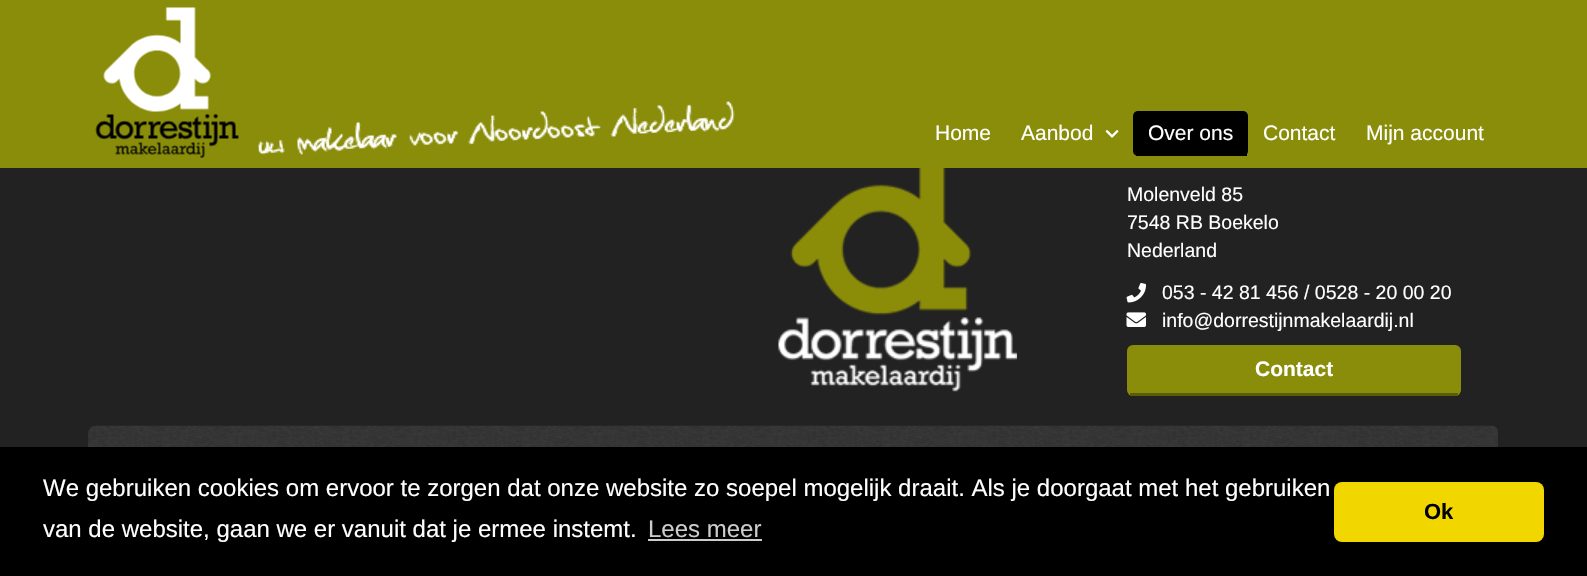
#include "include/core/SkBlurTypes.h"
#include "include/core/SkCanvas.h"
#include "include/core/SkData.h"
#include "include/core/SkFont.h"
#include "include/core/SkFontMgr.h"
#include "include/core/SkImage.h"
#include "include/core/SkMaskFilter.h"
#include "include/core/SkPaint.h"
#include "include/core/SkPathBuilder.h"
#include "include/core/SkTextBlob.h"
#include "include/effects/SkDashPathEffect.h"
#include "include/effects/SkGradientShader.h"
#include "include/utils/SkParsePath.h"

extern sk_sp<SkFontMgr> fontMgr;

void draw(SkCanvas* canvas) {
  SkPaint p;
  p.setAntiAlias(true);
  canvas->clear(SkColorSetRGB(34, 34, 34));
  p.setColor(SkColorSetRGB(138, 141, 9));
  canvas->drawRect(SkRect::MakeLTRB(0, 0, 1587, 168), p);
  canvas->drawImageRect(SkImages::DeferredFromEncodedData(SkData::MakeFromFileName("images/1.png")), SkRect::MakeLTRB(95, 7, 239, 158), SkSamplingOptions());
  canvas->drawImageRect(SkImages::DeferredFromEncodedData(SkData::MakeFromFileName("images/2.png")), SkRect::MakeLTRB(258, 101, 735, 155), SkSamplingOptions());
  canvas->drawImageRect(SkImages::DeferredFromEncodedData(SkData::MakeFromFileName("images/3.png")), SkRect::MakeLTRB(1105, 130, 1119, 138), SkSamplingOptions());
  p.setColor(SK_ColorBLACK);
  canvas->drawRoundRect(SkRect::MakeLTRB(1133, 111, 1248, 156), 5, 5, p);
  canvas->drawRect(SkRect::MakeLTRB(1136, 154, 1247, 156), p);
  canvas->drawImageRect(SkImages::DeferredFromEncodedData(SkData::MakeFromFileName("images/4.png")), SkRect::MakeLTRB(778, 168, 1017, 392), SkSamplingOptions());
  canvas->drawImageRect(SkImages::DeferredFromEncodedData(SkData::MakeFromFileName("images/5.png")), SkRect::MakeLTRB(1126, 283, 1146, 303), SkSamplingOptions());
  canvas->drawImageRect(SkImages::DeferredFromEncodedData(SkData::MakeFromFileName("images/6.png")), SkRect::MakeLTRB(1126, 312, 1146, 327), SkSamplingOptions());
  p.setColor(SkColorSetRGB(138, 141, 9));
  canvas->drawRoundRect(SkRect::MakeLTRB(1127, 345, 1461, 396), 6, 6, p);
  p.setColor(SkColorSetRGB(91, 93, 6));
  canvas->drawRect(SkRect::MakeLTRB(1130, 393, 1458, 396), p);
  canvas->drawImageRect(SkImages::DeferredFromEncodedData(SkData::MakeFromFileName("images/7.png")), SkRect::MakeLTRB(88, 425, 1498, 447), SkSamplingOptions());
  p.setColor(SK_ColorBLACK);
  canvas->drawRect(SkRect::MakeLTRB(0, 447, 1587, 576), p);
  p.setColor(SkColorSetRGB(204, 204, 204));
  canvas->drawRect(SkRect::MakeLTRB(648, 539, 762, 541), p);
  p.setColor(SkColorSetRGB(241, 214, 0));
  canvas->drawRoundRect(SkRect::MakeLTRB(1334, 482, 1544, 542), 8, 8, p);
  SkFont font1(fontMgr->matchFamilyStyle("Liberation Sans", SkFontStyle::Normal()), 21);
  font1.setSubpixel(true);
  p.setColor(SK_ColorWHITE);
  canvas->drawString("Home", 935, 140, font1, p);
  canvas->drawString("Aanbod", 1021, 140, font1, p);
  canvas->drawString("Over ons", 1148, 140, font1, p);
  canvas->drawString("Contact", 1263, 140, font1, p);
  canvas->drawString("Mijn account", 1366, 140, font1, p);
  SkFont font2(fontMgr->matchFamilyStyle("Liberation Sans", SkFontStyle::Normal()), 19.5f);
  font2.setSubpixel(true);
  canvas->drawString("Molenveld 85", 1127, 201, font2, p);
  canvas->drawString("7548 RB Boekelo", 1127, 229, font2, p);
  canvas->drawString("Nederland", 1127, 257, font2, p);
  canvas->drawString("053 - 42 81 456 / 0528 - 20 00 20", 1162, 299, font2, p);
  canvas->drawString("info@dorrestijnmakelaardij.nl", 1162, 327, font2, p);
  SkFont font3(fontMgr->matchFamilyStyle("Liberation Sans", SkFontStyle::Bold()), 21);
  font3.setSubpixel(true);
  canvas->drawString("Contact", 1255, 376, font3, p);
  SkFont font4(fontMgr->matchFamilyStyle("Liberation Sans", SkFontStyle::Normal()), 24);
  font4.setSubpixel(true);
  canvas->drawString("We gebruiken cookies om ervoor te zorgen dat onze website zo soepel mogelijk draait. Als je doorgaat met het gebruiken", 43, 496, font4, p);
  canvas->drawString("van de website, gaan we er vanuit dat je ermee instemt.", 43, 537, font4, p);
  p.setColor(SkColorSetRGB(204, 204, 204));
  canvas->drawString("Lees meer", 648, 537, font4, p);
  SkFont font5(fontMgr->matchFamilyStyle("Liberation Sans", SkFontStyle::Bold()), 22);
  font5.setSubpixel(true);
  p.setColor(SK_ColorBLACK);
  canvas->drawString("Ok", 1424, 519, font5, p);
}
